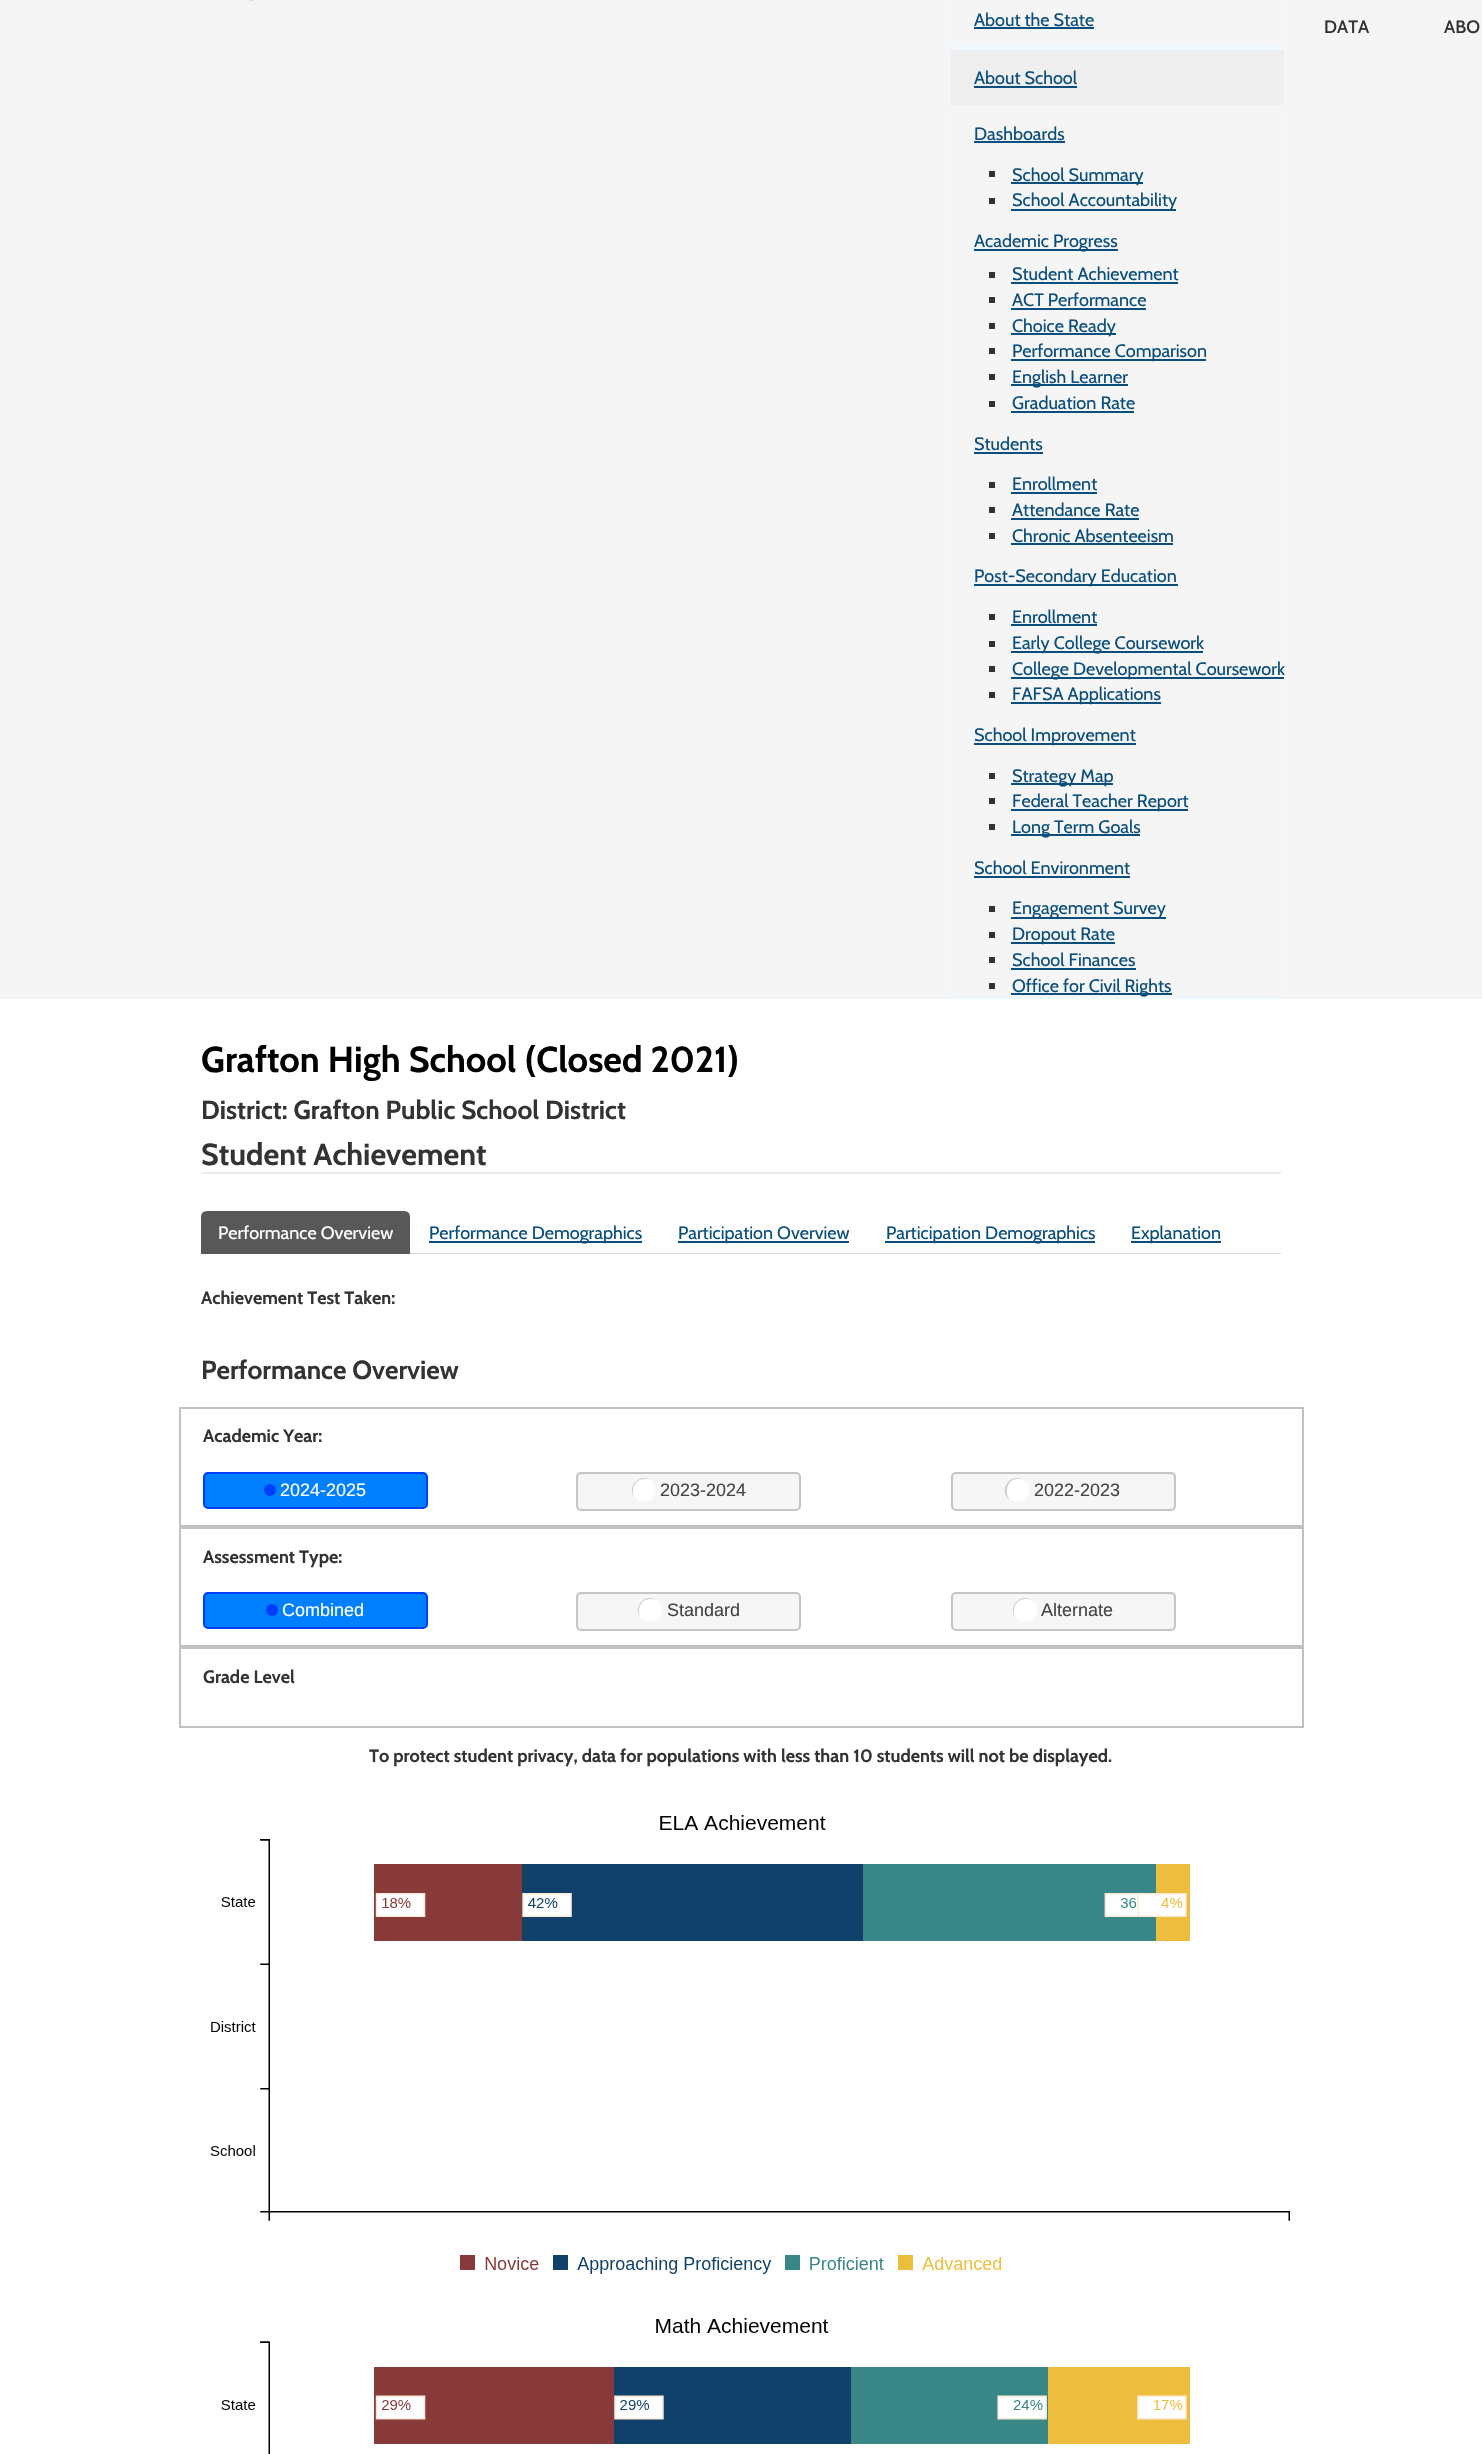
#include "include/core/SkBlurTypes.h"
#include "include/core/SkCanvas.h"
#include "include/core/SkData.h"
#include "include/core/SkFont.h"
#include "include/core/SkFontMgr.h"
#include "include/core/SkImage.h"
#include "include/core/SkMaskFilter.h"
#include "include/core/SkPaint.h"
#include "include/core/SkPathBuilder.h"
#include "include/core/SkTextBlob.h"
#include "include/effects/SkDashPathEffect.h"
#include "include/effects/SkGradientShader.h"
#include "include/utils/SkParsePath.h"

extern sk_sp<SkFontMgr> fontMgr;

void draw(SkCanvas* canvas) {
  SkPaint p;
  p.setAntiAlias(true);
  canvas->clear(SK_ColorWHITE);
  p.setColor(SkColorSetRGB(245, 245, 245));
  canvas->drawRect(SkRect::MakeLTRB(0, 0, 1482, 999), p);
  canvas->drawImageRect(SkImages::DeferredFromEncodedData(SkData::MakeFromFileName("images/1.png")), SkRect::MakeLTRB(249, 0, 254, 1), SkSamplingOptions());
  p.setStyle(SkPaint::kStroke_Style);
  p.setStrokeWidth(2);
  p.setColor(SkColorSetRGB(240, 248, 255));
  canvas->drawRect(SkRect::MakeLTRB(951, -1, 1285, 47), p);
  p.setStyle(SkPaint::kFill_Style);
  p.setColor(SkColorSetRGB(10, 78, 125));
  canvas->drawRect(SkRect::MakeLTRB(974, 27, 1094, 29), p);
  p.setStyle(SkPaint::kStroke_Style);
  p.setColor(SkColorSetRGB(240, 248, 255));
  canvas->drawRect(SkRect::MakeLTRB(951, 49, 1285, 998), p);
  p.setStyle(SkPaint::kFill_Style);
  p.setColor(SkColorSetRGB(238, 238, 238));
  canvas->drawRect(SkRect::MakeLTRB(951, 50, 1284, 105), p);
  p.setColor(SkColorSetRGB(10, 78, 125));
  canvas->drawRect(SkRect::MakeLTRB(974, 86, 1077, 88), p);
  canvas->drawRect(SkRect::MakeLTRB(974, 141, 1065, 143), p);
  p.setColor(SkColorSetRGB(51, 51, 51));
  canvas->drawRect(SkRect::MakeLTRB(989, 171, 995, 177), p);
  p.setColor(SkColorSetRGB(10, 78, 125));
  canvas->drawRect(SkRect::MakeLTRB(1011, 182, 1143, 184), p);
  p.setColor(SkColorSetRGB(51, 51, 51));
  canvas->drawRect(SkRect::MakeLTRB(989, 198, 995, 204), p);
  p.setColor(SkColorSetRGB(10, 78, 125));
  canvas->drawRect(SkRect::MakeLTRB(1011, 209, 1176, 211), p);
  canvas->drawRect(SkRect::MakeLTRB(974, 249, 1118, 251), p);
  p.setColor(SkColorSetRGB(51, 51, 51));
  canvas->drawRect(SkRect::MakeLTRB(989, 272, 995, 278), p);
  p.setColor(SkColorSetRGB(10, 78, 125));
  canvas->drawRect(SkRect::MakeLTRB(1011, 282, 1178, 284), p);
  p.setColor(SkColorSetRGB(51, 51, 51));
  canvas->drawRect(SkRect::MakeLTRB(989, 297, 995, 303), p);
  p.setColor(SkColorSetRGB(10, 78, 125));
  canvas->drawRect(SkRect::MakeLTRB(1011, 308, 1146, 310), p);
  p.setColor(SkColorSetRGB(51, 51, 51));
  canvas->drawRect(SkRect::MakeLTRB(989, 323, 995, 329), p);
  p.setColor(SkColorSetRGB(10, 78, 125));
  canvas->drawRect(SkRect::MakeLTRB(1011, 333, 1116, 335), p);
  p.setColor(SkColorSetRGB(51, 51, 51));
  canvas->drawRect(SkRect::MakeLTRB(989, 348, 995, 354), p);
  p.setColor(SkColorSetRGB(10, 78, 125));
  canvas->drawRect(SkRect::MakeLTRB(1011, 359, 1206, 361), p);
  p.setColor(SkColorSetRGB(51, 51, 51));
  canvas->drawRect(SkRect::MakeLTRB(989, 374, 995, 380), p);
  p.setColor(SkColorSetRGB(10, 78, 125));
  canvas->drawRect(SkRect::MakeLTRB(1011, 384, 1128, 386), p);
  p.setColor(SkColorSetRGB(51, 51, 51));
  canvas->drawRect(SkRect::MakeLTRB(989, 401, 995, 407), p);
  p.setColor(SkColorSetRGB(10, 78, 125));
  canvas->drawRect(SkRect::MakeLTRB(1011, 411, 1134, 413), p);
  canvas->drawRect(SkRect::MakeLTRB(974, 452, 1043, 454), p);
  p.setColor(SkColorSetRGB(51, 51, 51));
  canvas->drawRect(SkRect::MakeLTRB(989, 482, 995, 488), p);
  p.setColor(SkColorSetRGB(10, 78, 125));
  canvas->drawRect(SkRect::MakeLTRB(1011, 492, 1097, 494), p);
  p.setColor(SkColorSetRGB(51, 51, 51));
  canvas->drawRect(SkRect::MakeLTRB(989, 507, 995, 513), p);
  p.setColor(SkColorSetRGB(10, 78, 125));
  canvas->drawRect(SkRect::MakeLTRB(1011, 518, 1139, 520), p);
  p.setColor(SkColorSetRGB(51, 51, 51));
  canvas->drawRect(SkRect::MakeLTRB(989, 533, 995, 539), p);
  p.setColor(SkColorSetRGB(10, 78, 125));
  canvas->drawRect(SkRect::MakeLTRB(1011, 543, 1173, 545), p);
  canvas->drawRect(SkRect::MakeLTRB(974, 584, 1178, 586), p);
  p.setColor(SkColorSetRGB(51, 51, 51));
  canvas->drawRect(SkRect::MakeLTRB(989, 614, 995, 620), p);
  p.setColor(SkColorSetRGB(10, 78, 125));
  canvas->drawRect(SkRect::MakeLTRB(1011, 624, 1097, 626), p);
  p.setColor(SkColorSetRGB(51, 51, 51));
  canvas->drawRect(SkRect::MakeLTRB(989, 641, 995, 647), p);
  p.setColor(SkColorSetRGB(10, 78, 125));
  canvas->drawRect(SkRect::MakeLTRB(1011, 651, 1203, 653), p);
  p.setColor(SkColorSetRGB(51, 51, 51));
  canvas->drawRect(SkRect::MakeLTRB(989, 666, 995, 672), p);
  p.setColor(SkColorSetRGB(10, 78, 125));
  canvas->drawRect(SkRect::MakeLTRB(1011, 677, 1284, 679), p);
  p.setColor(SkColorSetRGB(51, 51, 51));
  canvas->drawRect(SkRect::MakeLTRB(989, 692, 995, 698), p);
  p.setColor(SkColorSetRGB(10, 78, 125));
  canvas->drawRect(SkRect::MakeLTRB(1011, 702, 1161, 704), p);
  canvas->drawRect(SkRect::MakeLTRB(974, 743, 1136, 745), p);
  p.setColor(SkColorSetRGB(51, 51, 51));
  canvas->drawRect(SkRect::MakeLTRB(989, 773, 995, 779), p);
  p.setColor(SkColorSetRGB(10, 78, 125));
  canvas->drawRect(SkRect::MakeLTRB(1011, 783, 1113, 785), p);
  p.setColor(SkColorSetRGB(51, 51, 51));
  canvas->drawRect(SkRect::MakeLTRB(989, 798, 995, 804), p);
  p.setColor(SkColorSetRGB(10, 78, 125));
  canvas->drawRect(SkRect::MakeLTRB(1011, 809, 1188, 811), p);
  p.setColor(SkColorSetRGB(51, 51, 51));
  canvas->drawRect(SkRect::MakeLTRB(989, 824, 995, 830), p);
  p.setColor(SkColorSetRGB(10, 78, 125));
  canvas->drawRect(SkRect::MakeLTRB(1011, 834, 1140, 836), p);
  canvas->drawRect(SkRect::MakeLTRB(974, 876, 1130, 878), p);
  p.setColor(SkColorSetRGB(51, 51, 51));
  canvas->drawRect(SkRect::MakeLTRB(989, 906, 995, 912), p);
  p.setColor(SkColorSetRGB(10, 78, 125));
  canvas->drawRect(SkRect::MakeLTRB(1011, 917, 1166, 919), p);
  p.setColor(SkColorSetRGB(51, 51, 51));
  canvas->drawRect(SkRect::MakeLTRB(989, 932, 995, 938), p);
  p.setColor(SkColorSetRGB(10, 78, 125));
  canvas->drawRect(SkRect::MakeLTRB(1011, 942, 1115, 944), p);
  p.setColor(SkColorSetRGB(51, 51, 51));
  canvas->drawRect(SkRect::MakeLTRB(989, 957, 995, 963), p);
  p.setColor(SkColorSetRGB(10, 78, 125));
  canvas->drawRect(SkRect::MakeLTRB(1011, 968, 1136, 970), p);
  p.setColor(SkColorSetRGB(51, 51, 51));
  canvas->drawRect(SkRect::MakeLTRB(989, 983, 995, 989), p);
  p.setColor(SkColorSetRGB(10, 78, 125));
  canvas->drawRect(SkRect::MakeLTRB(1011, 993, 1172, 995), p);
  p.setColor(SkColorSetRGB(236, 236, 236));
  canvas->drawRect(SkRect::MakeLTRB(201, 1172, 1281, 1174), p);
  p.setColor(SkColorSetRGB(221, 221, 221));
  canvas->drawRect(SkRect::MakeLTRB(410, 1253, 1281, 1254), p);
  p.setColor(SkColorSetRGB(88, 88, 88));
  canvas->drawPath(SkPathBuilder().moveTo(207, 1212).lineTo(404, 1212).cubicTo(407, 1212, 409, 1214, 409, 1217).lineTo(409, 1253).lineTo(202, 1253).lineTo(202, 1217).cubicTo(202, 1214, 204, 1212, 207, 1212).close().detach(), p);
  p.setStyle(SkPaint::kStroke_Style);
  canvas->drawPath(SkPathBuilder().moveTo(207, 1212).lineTo(404, 1212).cubicTo(407, 1212, 409, 1214, 409, 1217).lineTo(409, 1253).lineTo(202, 1253).lineTo(202, 1217).cubicTo(202, 1214, 204, 1212, 207, 1212).close().detach(), p);
  p.setStyle(SkPaint::kFill_Style);
  p.setColor(SkColorSetRGB(10, 78, 125));
  canvas->drawRect(SkRect::MakeLTRB(429, 1241, 642, 1243), p);
  canvas->drawRect(SkRect::MakeLTRB(678, 1241, 849, 1243), p);
  canvas->drawRect(SkRect::MakeLTRB(885, 1241, 1095, 1243), p);
  canvas->drawRect(SkRect::MakeLTRB(1131, 1241, 1221, 1243), p);
  p.setStyle(SkPaint::kStroke_Style);
  p.setColor(SkColorSetRGB(193, 193, 193));
  canvas->drawRect(SkRect::MakeLTRB(180, 1408, 1303, 1526), p);
  p.setStyle(SkPaint::kFill_Style);
  p.setColor(SkColorSetRGB(0, 127, 255));
  canvas->drawRoundRect(SkRect::MakeLTRB(204, 1473, 427, 1508), 4, 4, p);
  p.setStyle(SkPaint::kStroke_Style);
  p.setColor(SkColorSetRGB(0, 62, 255));
  canvas->drawRoundRect(SkRect::MakeLTRB(204, 1473, 427, 1508), 4, 4, p);
  p.setStyle(SkPaint::kFill_Style);
  canvas->drawCircle(270, 1490, 6, p);
  p.setColor(SkColorSetRGB(246, 246, 246));
  canvas->drawRoundRect(SkRect::MakeLTRB(577, 1473, 800, 1510), 4, 4, p);
  p.setStyle(SkPaint::kStroke_Style);
  p.setColor(SkColorSetRGB(197, 197, 197));
  canvas->drawRoundRect(SkRect::MakeLTRB(577, 1473, 800, 1510), 4, 4, p);
  p.setStyle(SkPaint::kFill_Style);
  p.setColor(SK_ColorWHITE);
  canvas->drawCircle(644, 1490, 12, p);
  p.setColor(SkColorSetRGB(204, 204, 204));
  canvas->drawPath(SkPathBuilder().moveTo(645, 1479).cubicTo(647.5f, 1479, 650, 1479.5f, 651.5f, 1481).cubicTo(640.5f, 1471.5f, 625.5f, 1487, 635, 1498).cubicTo(630.5f, 1491, 633.5f, 1479, 645, 1479).close().detach(), p);
  p.setColor(SkColorSetRGB(246, 246, 246));
  canvas->drawRoundRect(SkRect::MakeLTRB(952, 1473, 1175, 1510), 4, 4, p);
  p.setStyle(SkPaint::kStroke_Style);
  p.setColor(SkColorSetRGB(197, 197, 197));
  canvas->drawRoundRect(SkRect::MakeLTRB(952, 1473, 1175, 1510), 4, 4, p);
  p.setStyle(SkPaint::kFill_Style);
  p.setColor(SK_ColorWHITE);
  canvas->drawCircle(1017, 1490, 12, p);
  p.setColor(SkColorSetRGB(204, 204, 204));
  canvas->drawPath(SkPathBuilder().moveTo(1018, 1479).cubicTo(1020.5f, 1479, 1023, 1479.5f, 1024.5f, 1481).cubicTo(1012, 1470.5f, 996.5f, 1490, 1010, 1500).cubicTo(1004, 1493, 1006.5f, 1479, 1018, 1479).close().detach(), p);
  p.setStyle(SkPaint::kStroke_Style);
  p.setColor(SkColorSetRGB(193, 193, 193));
  canvas->drawRect(SkRect::MakeLTRB(180, 1528, 1303, 1646), p);
  p.setStyle(SkPaint::kFill_Style);
  p.setColor(SkColorSetRGB(0, 127, 255));
  canvas->drawRoundRect(SkRect::MakeLTRB(204, 1593, 427, 1628), 4, 4, p);
  p.setStyle(SkPaint::kStroke_Style);
  p.setColor(SkColorSetRGB(0, 62, 255));
  canvas->drawRoundRect(SkRect::MakeLTRB(204, 1593, 427, 1628), 4, 4, p);
  p.setStyle(SkPaint::kFill_Style);
  canvas->drawCircle(272, 1610, 6, p);
  p.setColor(SkColorSetRGB(246, 246, 246));
  canvas->drawRoundRect(SkRect::MakeLTRB(577, 1593, 800, 1630), 4, 4, p);
  p.setStyle(SkPaint::kStroke_Style);
  p.setColor(SkColorSetRGB(197, 197, 197));
  canvas->drawRoundRect(SkRect::MakeLTRB(577, 1593, 800, 1630), 4, 4, p);
  p.setStyle(SkPaint::kFill_Style);
  p.setColor(SK_ColorWHITE);
  canvas->drawCircle(650, 1610, 12, p);
  p.setColor(SkColorSetRGB(204, 204, 204));
  canvas->drawPath(SkPathBuilder().moveTo(651, 1599).cubicTo(653.5f, 1599, 656, 1599.5f, 657.5f, 1601).cubicTo(646.5f, 1591.5f, 631.5f, 1607, 641, 1618).cubicTo(636.5f, 1611, 639.5f, 1599, 651, 1599).close().detach(), p);
  p.setColor(SkColorSetRGB(246, 246, 246));
  canvas->drawRoundRect(SkRect::MakeLTRB(952, 1593, 1175, 1630), 4, 4, p);
  p.setStyle(SkPaint::kStroke_Style);
  p.setColor(SkColorSetRGB(197, 197, 197));
  canvas->drawRoundRect(SkRect::MakeLTRB(952, 1593, 1175, 1630), 4, 4, p);
  p.setStyle(SkPaint::kFill_Style);
  p.setColor(SK_ColorWHITE);
  canvas->drawCircle(1025, 1610, 12, p);
  p.setColor(SkColorSetRGB(204, 204, 204));
  canvas->drawPath(SkPathBuilder().moveTo(1026, 1599).cubicTo(1028.5f, 1599, 1031, 1599.5f, 1032.5f, 1601).cubicTo(1021.5f, 1591.5f, 1006.5f, 1607, 1016, 1618).cubicTo(1011.5f, 1611, 1014.5f, 1599, 1026, 1599).close().detach(), p);
  p.setStyle(SkPaint::kStroke_Style);
  p.setColor(SkColorSetRGB(193, 193, 193));
  canvas->drawRect(SkRect::MakeLTRB(180, 1648, 1303, 1727), p);
  canvas->drawImageRect(SkImages::DeferredFromEncodedData(SkData::MakeFromFileName("images/2.png")), SkRect::MakeLTRB(210, 1815, 1290, 2274), SkSamplingOptions());
  canvas->drawImageRect(SkImages::DeferredFromEncodedData(SkData::MakeFromFileName("images/3.png")), SkRect::MakeLTRB(221, 2318, 1190, 2454), SkSamplingOptions());
  SkFont font1(fontMgr->matchFamilyStyle("Cabin", SkFontStyle::Normal()), 18);
  font1.setSubpixel(true);
  p.setStyle(SkPaint::kFill_Style);
  p.setColor(SkColorSetRGB(10, 78, 125));
  canvas->drawString("About the State", 974, 26, font1, p);
  canvas->drawString("About School", 974, 84, font1, p);
  canvas->drawString("Dashboards", 974, 140, font1, p);
  canvas->drawString("School Summary", 1012, 181, font1, p);
  canvas->drawString("School Accountability", 1012, 206, font1, p);
  canvas->drawString("Academic Progress", 974, 247, font1, p);
  canvas->drawString("Student Achievement", 1012, 280, font1, p);
  canvas->drawString("ACT Performance", 1012, 306, font1, p);
  canvas->drawString("Choice Ready", 1012, 332, font1, p);
  canvas->drawString("Performance Comparison", 1012, 357, font1, p);
  canvas->drawString("English Learner", 1012, 383, font1, p);
  canvas->drawString("Graduation Rate", 1012, 409, font1, p);
  canvas->drawString("Students", 974, 450, font1, p);
  canvas->drawString("Enrollment", 1012, 490, font1, p);
  canvas->drawString("Attendance Rate", 1012, 516, font1, p);
  canvas->drawString("Chronic Absenteeism", 1012, 542, font1, p);
  canvas->drawString("Post-Secondary Education", 974, 582, font1, p);
  canvas->drawString("Enrollment", 1012, 623, font1, p);
  canvas->drawString("Early College Coursework", 1012, 649, font1, p);
  canvas->drawString("College Developmental Coursework", 1012, 675, font1, p);
  canvas->drawString("FAFSA Applications", 1012, 700, font1, p);
  canvas->drawString("School Improvement", 974, 741, font1, p);
  canvas->drawString("Strategy Map", 1012, 782, font1, p);
  canvas->drawString("Federal Teacher Report", 1012, 807, font1, p);
  canvas->drawString("Long Term Goals", 1012, 833, font1, p);
  canvas->drawString("School Environment", 974, 874, font1, p);
  canvas->drawString("Engagement Survey", 1012, 914, font1, p);
  canvas->drawString("Dropout Rate", 1012, 940, font1, p);
  canvas->drawString("School Finances", 1012, 966, font1, p);
  canvas->drawString("Office for Civil Rights", 1012, 992, font1, p);
  SkFont font2(fontMgr->matchFamilyStyle("Cabin", SkFontStyle(500, SkFontStyle::kNormal_Width, SkFontStyle::kUpright_Slant)), 18);
  font2.setSubpixel(true);
  p.setColor(SkColorSetRGB(51, 51, 51));
  canvas->drawString("DATA", 1324, 33, font2, p);
  canvas->drawString("ABO", 1444, 33, font2, p);
  SkFont font3(fontMgr->matchFamilyStyle("Cabin", SkFontStyle::Bold()), 36);
  font3.setSubpixel(true);
  p.setColor(SK_ColorBLACK);
  canvas->drawString("Grafton High School (Closed 2021)", 201, 1072, font3, p);
  SkFont font4(fontMgr->matchFamilyStyle("Cabin", SkFontStyle::Bold()), 26.1f);
  font4.setSubpixel(true);
  p.setColor(SkColorSetRGB(51, 51, 51));
  canvas->drawString("District: Grafton Public School District", 201, 1119, font4, p);
  SkFont font5(fontMgr->matchFamilyStyle("Cabin", SkFontStyle::Bold()), 30.5f);
  font5.setSubpixel(true);
  canvas->drawString("Student Achievement", 201, 1165, font5, p);
  p.setColor(SK_ColorWHITE);
  canvas->drawString("Performance Overview", 218, 1239, font1, p);
  p.setColor(SkColorSetRGB(10, 78, 125));
  canvas->drawString("Performance Demographics", 429, 1239, font1, p);
  canvas->drawString("Participation Overview", 678, 1239, font1, p);
  canvas->drawString("Participation Demographics", 886, 1239, font1, p);
  canvas->drawString("Explanation", 1131, 1239, font1, p);
  SkFont font6(fontMgr->matchFamilyStyle("Cabin", SkFontStyle::Bold()), 18);
  font6.setSubpixel(true);
  p.setColor(SkColorSetRGB(51, 51, 51));
  canvas->drawString("Achievement Test Taken:", 201, 1304, font6, p);
  canvas->drawString("Performance Overview", 201, 1379, font4, p);
  canvas->drawString("Academic Year:", 203, 1442, font6, p);
  SkFont font7(fontMgr->matchFamilyStyle("Liberation Sans", SkFontStyle::Normal()), 18);
  font7.setSubpixel(true);
  p.setColor(SK_ColorWHITE);
  canvas->drawString("2024-2025", 280, 1496, font7, p);
  p.setColor(SkColorSetRGB(69, 69, 69));
  canvas->drawString("2023-2024", 660, 1496, font7, p);
  canvas->drawString("2022-2023", 1034, 1496, font7, p);
  p.setColor(SkColorSetRGB(51, 51, 51));
  canvas->drawString("Assessment Type:", 203, 1563, font6, p);
  p.setColor(SK_ColorWHITE);
  canvas->drawString("Combined", 282, 1616, font7, p);
  p.setColor(SkColorSetRGB(69, 69, 69));
  canvas->drawString("Standard", 667, 1616, font7, p);
  canvas->drawString("Alternate", 1041, 1616, font7, p);
  p.setColor(SkColorSetRGB(51, 51, 51));
  canvas->drawString("Grade Level", 203, 1683, font6, p);
  canvas->drawString("To protect student privacy, data for populations with less than 10 students will not be displayed.", 369, 1762, font6, p);
}
